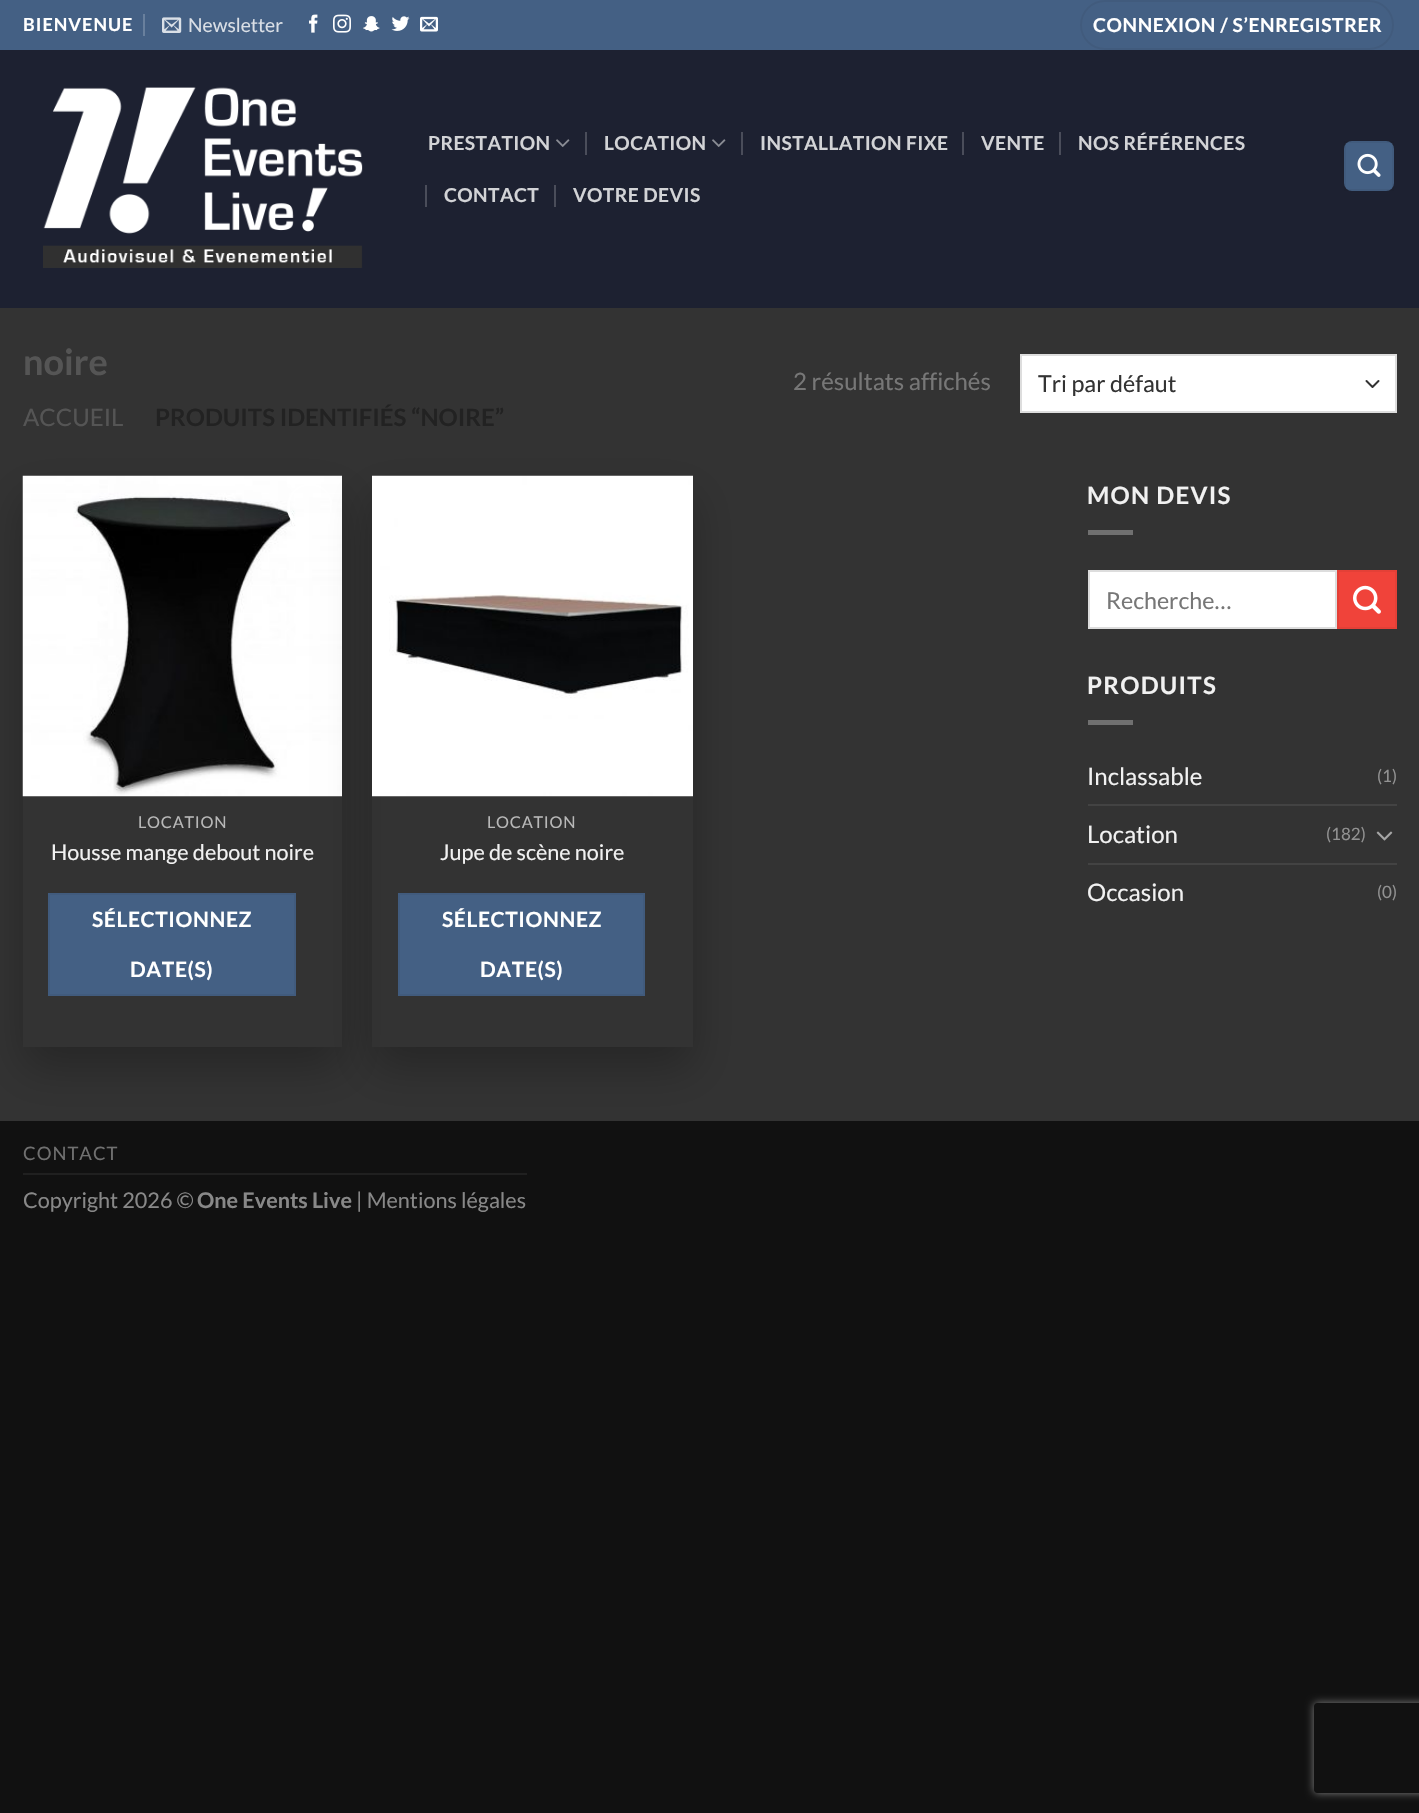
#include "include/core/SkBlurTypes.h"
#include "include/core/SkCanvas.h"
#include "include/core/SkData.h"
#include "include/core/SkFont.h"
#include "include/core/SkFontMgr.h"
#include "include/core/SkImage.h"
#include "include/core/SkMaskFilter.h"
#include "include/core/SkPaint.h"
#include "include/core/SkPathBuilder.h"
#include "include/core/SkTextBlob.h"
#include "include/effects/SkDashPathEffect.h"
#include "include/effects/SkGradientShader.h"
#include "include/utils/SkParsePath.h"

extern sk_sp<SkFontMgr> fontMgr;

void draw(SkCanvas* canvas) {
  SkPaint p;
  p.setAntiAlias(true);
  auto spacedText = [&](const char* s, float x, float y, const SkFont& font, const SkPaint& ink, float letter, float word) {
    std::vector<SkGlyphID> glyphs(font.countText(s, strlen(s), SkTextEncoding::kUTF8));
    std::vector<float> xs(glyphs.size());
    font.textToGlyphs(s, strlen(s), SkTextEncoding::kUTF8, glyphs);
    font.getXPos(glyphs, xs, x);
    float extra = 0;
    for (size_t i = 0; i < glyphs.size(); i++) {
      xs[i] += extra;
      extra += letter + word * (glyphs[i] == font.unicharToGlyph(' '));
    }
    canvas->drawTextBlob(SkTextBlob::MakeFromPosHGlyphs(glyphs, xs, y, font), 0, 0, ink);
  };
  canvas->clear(SkColorSetRGB(17, 17, 17));
  p.setColor(SkColorSetRGB(51, 51, 51));
  canvas->drawRect(SkRect::MakeLTRB(0, 308, 1419, 1121), p);
  p.setColor(SkColorSetRGB(68, 96, 132));
  canvas->drawRect(SkRect::MakeLTRB(0, 0, 1419, 50), p);
  p.setColor(SkColorSetRGB(105, 128, 157));
  canvas->drawRect(SkRect::MakeLTRB(143, 14, 145, 36), p);
  canvas->drawImageRect(SkImages::DeferredFromEncodedData(SkData::MakeFromFileName("images/1.png")), SkRect::MakeLTRB(162, 17, 182, 33), SkSamplingOptions());
  canvas->drawImageRect(SkImages::DeferredFromEncodedData(SkData::MakeFromFileName("images/2.png")), SkRect::MakeLTRB(309, 14, 318, 33), SkSamplingOptions());
  canvas->drawImageRect(SkImages::DeferredFromEncodedData(SkData::MakeFromFileName("images/3.png")), SkRect::MakeLTRB(333, 14, 351, 33), SkSamplingOptions());
  canvas->drawImageRect(SkImages::DeferredFromEncodedData(SkData::MakeFromFileName("images/4.png")), SkRect::MakeLTRB(363, 16, 380, 32), SkSamplingOptions());
  canvas->drawImageRect(SkImages::DeferredFromEncodedData(SkData::MakeFromFileName("images/5.png")), SkRect::MakeLTRB(391, 16, 410, 31), SkSamplingOptions());
  canvas->drawImageRect(SkImages::DeferredFromEncodedData(SkData::MakeFromFileName("images/6.png")), SkRect::MakeLTRB(420, 16, 438, 32), SkSamplingOptions());
  p.setStyle(SkPaint::kStroke_Style);
  p.setStrokeWidth(2);
  p.setColor(SkColorSetRGB(65, 91, 125));
  canvas->drawRoundRect(SkRect::MakeLTRB(1081, 1, 1393, 49), 24, 24, p);
  p.setStyle(SkPaint::kFill_Style);
  p.setColor(SkColorSetRGB(29, 33, 49));
  canvas->drawRect(SkRect::MakeLTRB(0, 50, 1419, 308), p);
  canvas->drawImageRect(SkImages::DeferredFromEncodedData(SkData::MakeFromFileName("images/7.png")), SkRect::MakeLTRB(43, 87, 363, 268), SkSamplingOptions());
  canvas->drawImageRect(SkImages::DeferredFromEncodedData(SkData::MakeFromFileName("images/8.png")), SkRect::MakeLTRB(556, 139, 570, 147), SkSamplingOptions());
  p.setColor(SkColorSetRGB(74, 77, 90));
  canvas->drawRect(SkRect::MakeLTRB(585, 132, 587, 155), p);
  canvas->drawImageRect(SkImages::DeferredFromEncodedData(SkData::MakeFromFileName("images/8.png")), SkRect::MakeLTRB(712, 139, 726, 147), SkSamplingOptions());
  canvas->drawRect(SkRect::MakeLTRB(741, 132, 743, 155), p);
  canvas->drawRect(SkRect::MakeLTRB(962, 132, 964, 155), p);
  canvas->drawRect(SkRect::MakeLTRB(1059, 132, 1061, 155), p);
  canvas->drawRect(SkRect::MakeLTRB(425, 185, 427, 207), p);
  canvas->drawRect(SkRect::MakeLTRB(554, 185, 556, 207), p);
  p.setColor(SkColorSetRGB(68, 96, 132));
  canvas->drawRoundRect(SkRect::MakeLTRB(1344, 141, 1394, 191), 8, 8, p);
  p.setStyle(SkPaint::kStroke_Style);
  p.setColor(SkColorSetARGB(13, 0, 0, 0));
  canvas->drawRect(SkRect::MakeLTRB(1345, 142, 1393, 190), p);
  canvas->drawImageRect(SkImages::DeferredFromEncodedData(SkData::MakeFromFileName("images/9.png")), SkRect::MakeLTRB(1357, 153, 1381, 177), SkSamplingOptions());
  p.setStyle(SkPaint::kFill_Style);
  p.setColor(SK_ColorWHITE);
  canvas->drawRect(SkRect::MakeLTRB(1022, 356, 1395, 411), p);
  p.setStyle(SkPaint::kStroke_Style);
  p.setStrokeCap(SkPaint::kRound_Cap);
  p.setStrokeJoin(SkPaint::kRound_Join);
  p.setColor(SkColorSetRGB(51, 51, 51));
  canvas->drawPath(SkPathBuilder().moveTo(1366.5f, 381).lineTo(1372.5f, 387).lineTo(1378.5f, 381).detach(), p);
  p.setStrokeCap(SkPaint::kButt_Cap);
  p.setStrokeJoin(SkPaint::kMiter_Join);
  p.setColor(SkColorSetRGB(221, 221, 221));
  canvas->drawRect(SkRect::MakeLTRB(1021, 355, 1396, 412), p);
  canvas->save();
  canvas->clipPath(SkPathBuilder(SkPathFillType::kEvenOdd).moveTo(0, 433).lineTo(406, 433).lineTo(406, 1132).lineTo(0, 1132).close().moveTo(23, 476).lineTo(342, 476).lineTo(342, 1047).lineTo(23, 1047).close().detach(), true);
  p.setStyle(SkPaint::kFill_Style);
  p.setColor(SkColorSetARGB(64, 0, 0, 0));
  p.setMaskFilter(SkMaskFilter::MakeBlur(kNormal_SkBlurStyle, 21));
  canvas->drawRect(SkRect::MakeLTRB(23, 497, 342, 1068), p);
  p.setMaskFilter(nullptr);
  canvas->restore();
  canvas->drawImageRect(SkImages::DeferredFromEncodedData(SkData::MakeFromFileName("images/10.png")), SkRect::MakeLTRB(22, 475, 342, 797), SkSamplingOptions());
  p.setStyle(SkPaint::kStroke_Style);
  p.setStrokeWidth(3);
  p.setColor(SK_ColorWHITE);
  canvas->drawRoundRect(SkRect::MakeLTRB(288.5f, 484.5f, 331.5f, 528.5f), 21.5f, 21.5f, p);
  p.setStyle(SkPaint::kFill_Style);
  p.setColor(SkColorSetRGB(68, 96, 132));
  canvas->drawRect(SkRect::MakeLTRB(49, 894, 295, 995), p);
  p.setStyle(SkPaint::kStroke_Style);
  p.setStrokeWidth(2);
  p.setColor(SkColorSetRGB(65, 91, 125));
  canvas->drawRect(SkRect::MakeLTRB(49, 894, 295, 995), p);
  canvas->save();
  canvas->clipPath(SkPathBuilder(SkPathFillType::kEvenOdd).moveTo(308, 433).lineTo(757, 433).lineTo(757, 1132).lineTo(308, 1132).close().moveTo(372, 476).lineTo(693, 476).lineTo(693, 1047).lineTo(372, 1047).close().detach(), true);
  p.setStyle(SkPaint::kFill_Style);
  p.setColor(SkColorSetARGB(64, 0, 0, 0));
  p.setMaskFilter(SkMaskFilter::MakeBlur(kNormal_SkBlurStyle, 21));
  canvas->drawRect(SkRect::MakeLTRB(372, 497, 693, 1068), p);
  p.setMaskFilter(nullptr);
  canvas->restore();
  canvas->drawImageRect(SkImages::DeferredFromEncodedData(SkData::MakeFromFileName("images/11.png")), SkRect::MakeLTRB(372, 475, 693, 797), SkSamplingOptions());
  p.setColor(SkColorSetRGB(68, 96, 132));
  canvas->drawRect(SkRect::MakeLTRB(399, 894, 644, 995), p);
  p.setStyle(SkPaint::kStroke_Style);
  p.setColor(SkColorSetRGB(65, 91, 125));
  canvas->drawRect(SkRect::MakeLTRB(399, 894, 644, 995), p);
  p.setStyle(SkPaint::kFill_Style);
  p.setColor(SkColorSetRGB(112, 112, 112));
  canvas->drawRect(SkRect::MakeLTRB(1088, 530, 1133, 535), p);
  p.setColor(SK_ColorWHITE);
  canvas->drawRect(SkRect::MakeLTRB(1089, 571, 1336, 628), p);
  p.setStyle(SkPaint::kStroke_Style);
  p.setColor(SkColorSetRGB(221, 221, 221));
  canvas->drawRect(SkRect::MakeLTRB(1089, 571, 1336, 628), p);
  p.setStyle(SkPaint::kFill_Style);
  p.setColor(SkColorSetRGB(240, 67, 58));
  canvas->drawRect(SkRect::MakeLTRB(1338, 571, 1396, 628), p);
  p.setStyle(SkPaint::kStroke_Style);
  p.setColor(SkColorSetRGB(228, 64, 55));
  canvas->drawRect(SkRect::MakeLTRB(1338, 571, 1396, 628), p);
  canvas->drawImageRect(SkImages::DeferredFromEncodedData(SkData::MakeFromFileName("images/12.png")), SkRect::MakeLTRB(1353, 585, 1381, 614), SkSamplingOptions());
  p.setStyle(SkPaint::kFill_Style);
  p.setColor(SkColorSetRGB(112, 112, 112));
  canvas->drawRect(SkRect::MakeLTRB(1088, 720, 1133, 725), p);
  p.setColor(SkColorSetRGB(67, 67, 67));
  canvas->drawRect(SkRect::MakeLTRB(1088, 804, 1397, 806), p);
  canvas->drawImageRect(SkImages::DeferredFromEncodedData(SkData::MakeFromFileName("images/13.png")), SkRect::MakeLTRB(1376, 831, 1393, 841), SkSamplingOptions());
  canvas->drawRect(SkRect::MakeLTRB(1088, 863, 1397, 865), p);
  p.setColor(SkColorSetRGB(32, 32, 32));
  canvas->drawRect(SkRect::MakeLTRB(23, 1173, 527, 1175), p);
  canvas->save();
  canvas->clipPath(SkPathBuilder(SkPathFillType::kEvenOdd).moveTo(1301, 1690).lineTo(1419, 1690).lineTo(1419, 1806).lineTo(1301, 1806).close().moveTo(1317, 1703).lineTo(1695, 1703).cubicTo(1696.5f, 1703, 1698, 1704.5f, 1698, 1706).lineTo(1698, 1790).cubicTo(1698, 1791.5f, 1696.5f, 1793, 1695, 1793).lineTo(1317, 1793).cubicTo(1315.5f, 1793, 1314, 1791.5f, 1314, 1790).lineTo(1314, 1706).cubicTo(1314, 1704.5f, 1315.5f, 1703, 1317, 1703).close().detach(), true);
  p.setColor(SkColorSetRGB(128, 128, 128));
  p.setMaskFilter(SkMaskFilter::MakeBlur(kNormal_SkBlurStyle, 4));
  canvas->drawRoundRect(SkRect::MakeLTRB(1314, 1703, 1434, 1793), 3, 3, p);
  p.setMaskFilter(nullptr);
  canvas->restore();
  SkFont font1(fontMgr->matchFamilyStyle("Lato", SkFontStyle::Bold()), 18);
  font1.setSubpixel(true);
  p.setColor(SK_ColorWHITE);
  spacedText("BIENVENUE", 23, 31, font1, p, 1, 0);
  SkFont font2(fontMgr->matchFamilyStyle("Lato", SkFontStyle::Normal()), 19.25f);
  font2.setSubpixel(true);
  p.setColor(SkColorSetRGB(218, 223, 230));
  canvas->drawString("Newsletter", 188, 32, font2, p);
  SkFont font3(fontMgr->matchFamilyStyle("Lato", SkFontStyle::Bold()), 19.25f);
  font3.setSubpixel(true);
  p.setColor(SK_ColorWHITE);
  spacedText("CONNEXION / S’ENREGISTRER", 1093, 32, font3, p, 0.6f, 0);
  p.setColor(SkColorSetRGB(210, 211, 214));
  spacedText("PRESTATION", 428, 150, font3, p, 0.4f, 0);
  spacedText("LOCATION", 604, 150, font3, p, 0.4f, 0);
  spacedText("INSTALLATION FIXE", 760, 150, font3, p, 0.4f, 0);
  spacedText("VENTE", 981, 150, font3, p, 0.4f, 0);
  spacedText("NOS RÉFÉRENCES", 1078, 150, font3, p, 0.4f, 0);
  spacedText("CONTACT", 444, 202, font3, p, 0.4f, 0);
  spacedText("VOTRE DEVIS", 573, 202, font3, p, 0.4f, 0);
  SkFont font4(fontMgr->matchFamilyStyle("Lato", SkFontStyle::Bold()), 36);
  font4.setSubpixel(true);
  p.setColor(SkColorSetRGB(85, 85, 85));
  canvas->drawString("noire", 23, 375, font4, p);
  SkFont font5(fontMgr->matchFamilyStyle("Lato", SkFontStyle::Normal()), 24);
  font5.setSubpixel(true);
  canvas->drawString("ACCUEIL", 23, 426, font5, p);
  SkFont font6(fontMgr->matchFamilyStyle("Lato", SkFontStyle::Bold()), 24);
  font6.setSubpixel(true);
  p.setColor(SkColorSetRGB(34, 34, 34));
  canvas->drawString("PRODUITS IDENTIFIÉS “NOIRE”", 155, 426, font6, p);
  p.setColor(SkColorSetRGB(119, 119, 119));
  canvas->drawString("2 résultats affichés", 793, 390, font5, p);
  SkFont font7(fontMgr->matchFamilyStyle("Lato", SkFontStyle::Normal()), 23.25f);
  font7.setSubpixel(true);
  p.setColor(SkColorSetRGB(51, 51, 51));
  canvas->drawString("Tri par défaut", 1038, 392, font7, p);
  SkFont font8(fontMgr->matchFamilyStyle("Lato", SkFontStyle::Normal()), 16.25f);
  font8.setSubpixel(true);
  p.setColor(SkColorSetRGB(184, 184, 184));
  spacedText("LOCATION", 138, 828, font8, p, 0.75f, 0);
  SkFont font9(fontMgr->matchFamilyStyle("Lato", SkFontStyle::Normal()), 21.6f);
  font9.setSubpixel(true);
  p.setColor(SkColorSetRGB(241, 241, 241));
  canvas->drawString("Housse mange debout noire", 51, 860, font9, p);
  SkFont font10(fontMgr->matchFamilyStyle("Lato", SkFontStyle::Bold()), 21);
  font10.setSubpixel(true);
  p.setColor(SK_ColorWHITE);
  spacedText("SÉLECTIONNEZ", 92, 927, font10, p, 0.6f, 0);
  spacedText("DATE(S)", 130, 977, font10, p, 0.6f, 0);
  p.setColor(SkColorSetRGB(184, 184, 184));
  spacedText("LOCATION", 487, 828, font8, p, 0.75f, 0);
  p.setColor(SkColorSetRGB(241, 241, 241));
  canvas->drawString("Jupe de scène noire", 440, 860, font9, p);
  p.setColor(SK_ColorWHITE);
  spacedText("SÉLECTIONNEZ", 442, 927, font10, p, 0.6f, 0);
  spacedText("DATE(S)", 480, 977, font10, p, 0.6f, 0);
  p.setColor(SkColorSetRGB(241, 241, 241));
  spacedText("MON DEVIS", 1087, 504, font6, p, 1.25f, 0);
  p.setColor(SkColorSetRGB(119, 119, 119));
  canvas->drawString("Recherche…", 1106, 609, font7, p);
  p.setColor(SkColorSetRGB(241, 241, 241));
  spacedText("PRODUITS", 1087, 694, font6, p, 1.25f, 0);
  canvas->drawString("Inclassable", 1087, 785, font5, p);
  SkFont font11(fontMgr->matchFamilyStyle("Lato", SkFontStyle::Normal()), 17);
  font11.setSubpixel(true);
  p.setColor(SkColorSetRGB(146, 146, 146));
  canvas->drawString("(1)", 1377, 782, font11, p);
  p.setColor(SkColorSetRGB(241, 241, 241));
  canvas->drawString("Location", 1087, 843, font5, p);
  p.setColor(SkColorSetRGB(146, 146, 146));
  canvas->drawString("(182)", 1326, 840, font11, p);
  p.setColor(SkColorSetRGB(241, 241, 241));
  canvas->drawString("Occasion", 1087, 901, font5, p);
  p.setColor(SkColorSetRGB(146, 146, 146));
  canvas->drawString("(0)", 1377, 898, font11, p);
  SkFont font12(fontMgr->matchFamilyStyle("Lato", SkFontStyle::Normal()), 18.5f);
  font12.setSubpixel(true);
  p.setColor(SkColorSetRGB(112, 112, 112));
  spacedText("CONTACT", 23, 1160, font12, p, 1, 0);
  p.setColor(SkColorSetRGB(136, 136, 136));
  canvas->drawString("Copyright 2026 ©", 23, 1208, font9, p);
  SkFont font13(fontMgr->matchFamilyStyle("Lato", SkFontStyle::Bold()), 21.6f);
  font13.setSubpixel(true);
  canvas->drawString("One Events Live", 197, 1208, font13, p);
  canvas->drawString("| Mentions légales", 356, 1208, font9, p);
}
